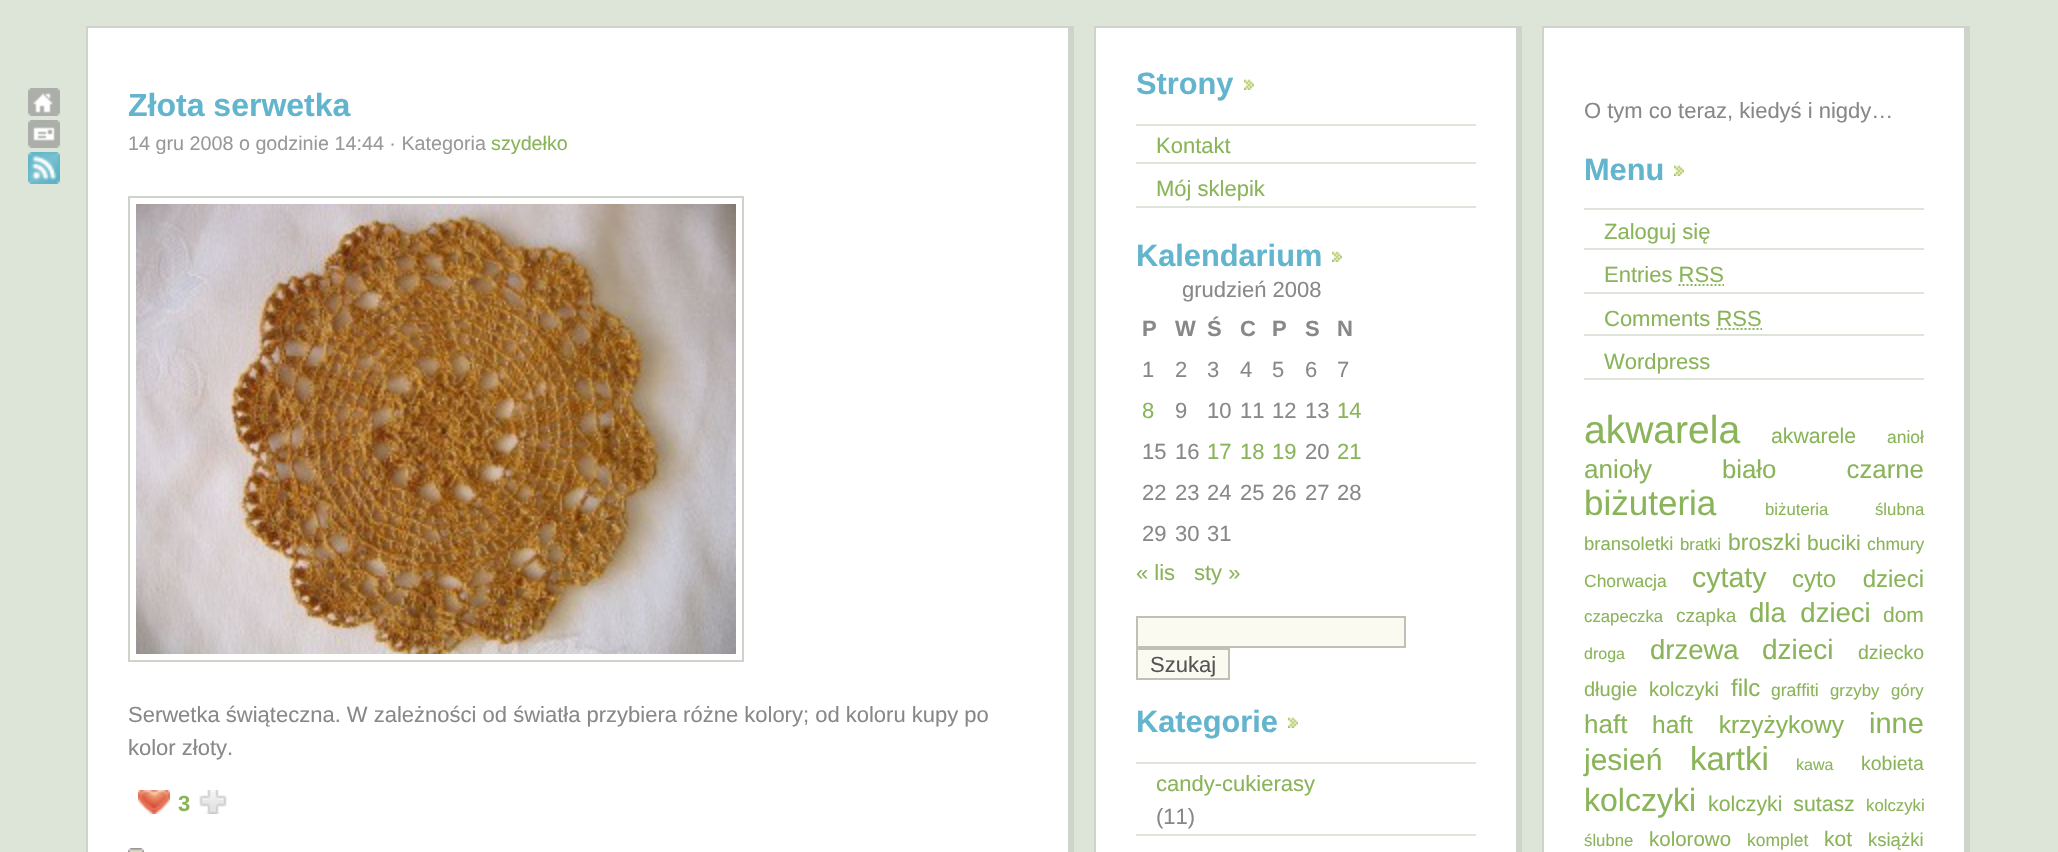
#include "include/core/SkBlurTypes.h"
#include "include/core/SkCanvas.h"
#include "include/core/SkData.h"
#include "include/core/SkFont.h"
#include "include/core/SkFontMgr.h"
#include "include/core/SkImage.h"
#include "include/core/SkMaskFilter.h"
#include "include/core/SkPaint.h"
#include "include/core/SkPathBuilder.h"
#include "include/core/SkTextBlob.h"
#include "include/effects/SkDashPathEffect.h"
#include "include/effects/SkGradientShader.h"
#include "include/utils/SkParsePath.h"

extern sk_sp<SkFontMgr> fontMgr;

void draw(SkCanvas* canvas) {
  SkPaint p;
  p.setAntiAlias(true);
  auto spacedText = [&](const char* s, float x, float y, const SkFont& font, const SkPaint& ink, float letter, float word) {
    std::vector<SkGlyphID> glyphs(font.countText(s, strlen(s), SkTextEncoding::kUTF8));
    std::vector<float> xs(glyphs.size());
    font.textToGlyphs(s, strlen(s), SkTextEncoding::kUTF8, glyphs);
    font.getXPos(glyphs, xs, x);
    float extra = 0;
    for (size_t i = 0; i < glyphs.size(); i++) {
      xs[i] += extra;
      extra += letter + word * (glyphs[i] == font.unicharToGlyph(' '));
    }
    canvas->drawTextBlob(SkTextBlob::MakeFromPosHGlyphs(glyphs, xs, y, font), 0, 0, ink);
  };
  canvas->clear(SkColorSetRGB(221, 229, 217));
  canvas->drawImageRect(SkImages::DeferredFromEncodedData(SkData::MakeFromFileName("images/1.png")), SkRect::MakeLTRB(28, 88, 60, 116), SkSamplingOptions());
  canvas->drawImageRect(SkImages::DeferredFromEncodedData(SkData::MakeFromFileName("images/2.png")), SkRect::MakeLTRB(28, 120, 60, 148), SkSamplingOptions());
  canvas->drawImageRect(SkImages::DeferredFromEncodedData(SkData::MakeFromFileName("images/3.png")), SkRect::MakeLTRB(28, 152, 60, 184), SkSamplingOptions());
  p.setColor(SK_ColorWHITE);
  canvas->drawRect(SkRect::MakeLTRB(88, 28, 1068, 852), p);
  p.setColor(SkColorSetRGB(206, 212, 202));
  canvas->drawRect(SkRect::MakeLTRB(86, 26, 1074, 28), p);
  canvas->drawRect(SkRect::MakeLTRB(1068, 26, 1074, 852), p);
  canvas->drawRect(SkRect::MakeLTRB(86, 26, 88, 852), p);
  p.setStyle(SkPaint::kStroke_Style);
  p.setStrokeWidth(2);
  canvas->drawRect(SkRect::MakeLTRB(129, 197, 743, 661), p);
  canvas->drawImageRect(SkImages::DeferredFromEncodedData(SkData::MakeFromFileName("images/4.png")), SkRect::MakeLTRB(136, 204, 736, 654), SkSamplingOptions());
  canvas->drawImageRect(SkImages::DeferredFromEncodedData(SkData::MakeFromFileName("images/5.png")), SkRect::MakeLTRB(138, 790, 170, 814), SkSamplingOptions());
  canvas->drawImageRect(SkImages::DeferredFromEncodedData(SkData::MakeFromFileName("images/6.png")), SkRect::MakeLTRB(199, 790, 227, 814), SkSamplingOptions());
  canvas->drawImageRect(SkImages::DeferredFromEncodedData(SkData::MakeFromFileName("images/7.png")), SkRect::MakeLTRB(128, 848, 144, 852), SkSamplingOptions());
  p.setStyle(SkPaint::kFill_Style);
  p.setColor(SK_ColorWHITE);
  canvas->drawRect(SkRect::MakeLTRB(1096, 28, 1516, 852), p);
  p.setColor(SkColorSetRGB(206, 212, 202));
  canvas->drawRect(SkRect::MakeLTRB(1094, 26, 1522, 28), p);
  canvas->drawRect(SkRect::MakeLTRB(1516, 26, 1522, 852), p);
  canvas->drawRect(SkRect::MakeLTRB(1094, 26, 1096, 852), p);
  canvas->drawImageRect(SkImages::DeferredFromEncodedData(SkData::MakeFromFileName("images/8.png")), SkRect::MakeLTRB(1244, 79, 1254, 90), SkSamplingOptions());
  p.setColor(SkColorSetRGB(222, 228, 218));
  canvas->drawRect(SkRect::MakeLTRB(1136, 124, 1476, 126), p);
  canvas->drawRect(SkRect::MakeLTRB(1136, 162, 1476, 164), p);
  canvas->drawRect(SkRect::MakeLTRB(1136, 206, 1476, 208), p);
  canvas->drawImageRect(SkImages::DeferredFromEncodedData(SkData::MakeFromFileName("images/8.png")), SkRect::MakeLTRB(1332, 251, 1342, 262), SkSamplingOptions());
  p.setColor(SkColorSetRGB(250, 250, 240));
  canvas->drawRect(SkRect::MakeLTRB(1137, 617, 1405, 647), p);
  p.setStyle(SkPaint::kStroke_Style);
  p.setColor(SkColorSetRGB(193, 192, 181));
  canvas->drawRect(SkRect::MakeLTRB(1137, 617, 1405, 647), p);
  p.setStyle(SkPaint::kFill_Style);
  p.setColor(SkColorSetRGB(250, 250, 240));
  canvas->drawRect(SkRect::MakeLTRB(1137, 649, 1229, 679), p);
  p.setStyle(SkPaint::kStroke_Style);
  p.setColor(SkColorSetRGB(193, 192, 181));
  canvas->drawRect(SkRect::MakeLTRB(1137, 649, 1229, 679), p);
  canvas->drawImageRect(SkImages::DeferredFromEncodedData(SkData::MakeFromFileName("images/8.png")), SkRect::MakeLTRB(1288, 717, 1298, 728), SkSamplingOptions());
  p.setStyle(SkPaint::kFill_Style);
  p.setColor(SkColorSetRGB(222, 228, 218));
  canvas->drawRect(SkRect::MakeLTRB(1136, 762, 1476, 764), p);
  canvas->drawRect(SkRect::MakeLTRB(1136, 834, 1476, 836), p);
  p.setColor(SK_ColorWHITE);
  canvas->drawRect(SkRect::MakeLTRB(1544, 28, 1964, 852), p);
  p.setColor(SkColorSetRGB(206, 212, 202));
  canvas->drawRect(SkRect::MakeLTRB(1542, 26, 1970, 28), p);
  canvas->drawRect(SkRect::MakeLTRB(1964, 26, 1970, 852), p);
  canvas->drawRect(SkRect::MakeLTRB(1542, 26, 1544, 852), p);
  canvas->drawImageRect(SkImages::DeferredFromEncodedData(SkData::MakeFromFileName("images/8.png")), SkRect::MakeLTRB(1674, 165, 1684, 176), SkSamplingOptions());
  p.setColor(SkColorSetRGB(222, 228, 218));
  canvas->drawRect(SkRect::MakeLTRB(1584, 208, 1924, 210), p);
  canvas->drawRect(SkRect::MakeLTRB(1584, 248, 1924, 250), p);
  canvas->drawRect(SkRect::MakeLTRB(1584, 292, 1924, 294), p);
  p.setStyle(SkPaint::kStroke_Style);
  p.setColor(SkColorSetRGB(138, 180, 89));
  p.setPathEffect(SkDashPathEffect::Make({{2, 2}}, 0));
  canvas->drawPath(SkPathBuilder().moveTo(1678.5f, 285).lineTo(1724, 285).detach(), p);
  p.setPathEffect(nullptr);
  p.setStyle(SkPaint::kFill_Style);
  p.setColor(SkColorSetRGB(222, 228, 218));
  canvas->drawRect(SkRect::MakeLTRB(1584, 334, 1924, 336), p);
  p.setStyle(SkPaint::kStroke_Style);
  p.setColor(SkColorSetRGB(138, 180, 89));
  p.setPathEffect(SkDashPathEffect::Make({{2, 2}}, 0));
  canvas->drawPath(SkPathBuilder().moveTo(1716.5f, 329).lineTo(1762, 329).detach(), p);
  p.setPathEffect(nullptr);
  p.setStyle(SkPaint::kFill_Style);
  p.setColor(SkColorSetRGB(222, 228, 218));
  canvas->drawRect(SkRect::MakeLTRB(1584, 378, 1924, 380), p);
  SkFont font1(fontMgr->matchFamilyStyle("Liberation Sans", SkFontStyle::Bold()), 32);
  font1.setSubpixel(true);
  p.setColor(SkColorSetRGB(99, 180, 205));
  canvas->drawString("Złota serwetka", 128, 116, font1, p);
  SkFont font2(fontMgr->matchFamilyStyle("Liberation Sans", SkFontStyle::Normal()), 19.75f);
  font2.setSubpixel(true);
  p.setColor(SkColorSetRGB(153, 153, 153));
  canvas->drawString("14 gru 2008 o godzinie 14:44 · Kategoria", 128, 150, font2, p);
  p.setColor(SkColorSetRGB(138, 180, 89));
  canvas->drawString("szydełko", 491, 150, font2, p);
  SkFont font3(fontMgr->matchFamilyStyle("Liberation Sans", SkFontStyle::Normal()), 22);
  font3.setSubpixel(true);
  p.setColor(SkColorSetRGB(136, 136, 136));
  canvas->drawString("Serwetka świąteczna. W zależności od światła przybiera różne kolory; od koloru kupy po", 128, 722, font3, p);
  canvas->drawString("kolor złoty.", 128, 755, font3, p);
  SkFont font4(fontMgr->matchFamilyStyle("Liberation Sans", SkFontStyle::Bold()), 22);
  font4.setSubpixel(true);
  p.setColor(SkColorSetRGB(138, 180, 89));
  canvas->drawString("3", 178, 811, font4, p);
  SkFont font5(fontMgr->matchFamilyStyle("Liberation Sans", SkFontStyle::Bold()), 30.75f);
  font5.setSubpixel(true);
  p.setColor(SkColorSetRGB(99, 180, 205));
  canvas->drawString("Strony", 1136, 94, font5, p);
  p.setColor(SkColorSetRGB(138, 180, 89));
  canvas->drawString("Kontakt", 1156, 153, font3, p);
  canvas->drawString("Mój sklepik", 1156, 196, font3, p);
  p.setColor(SkColorSetRGB(99, 180, 205));
  canvas->drawString("Kalendarium", 1136, 266, font5, p);
  p.setColor(SkColorSetRGB(136, 136, 136));
  canvas->drawString("grudzień 2008", 1182, 297, font3, p);
  canvas->drawString("P", 1142, 336, font4, p);
  canvas->drawString("W", 1175, 336, font4, p);
  canvas->drawString("Ś", 1207, 336, font4, p);
  canvas->drawString("C", 1240, 336, font4, p);
  canvas->drawString("P", 1272, 336, font4, p);
  canvas->drawString("S", 1305, 336, font4, p);
  canvas->drawString("N", 1337, 336, font4, p);
  canvas->drawString("1", 1142, 377, font3, p);
  canvas->drawString("2", 1175, 377, font3, p);
  canvas->drawString("3", 1207, 377, font3, p);
  canvas->drawString("4", 1240, 377, font3, p);
  canvas->drawString("5", 1272, 377, font3, p);
  canvas->drawString("6", 1305, 377, font3, p);
  canvas->drawString("7", 1337, 377, font3, p);
  p.setColor(SkColorSetRGB(138, 180, 89));
  canvas->drawString("8", 1142, 418, font3, p);
  p.setColor(SkColorSetRGB(136, 136, 136));
  canvas->drawString("9", 1175, 418, font3, p);
  canvas->drawString("10", 1207, 418, font3, p);
  canvas->drawString("11", 1240, 418, font3, p);
  canvas->drawString("12", 1272, 418, font3, p);
  canvas->drawString("13", 1305, 418, font3, p);
  p.setColor(SkColorSetRGB(138, 180, 89));
  canvas->drawString("14", 1337, 418, font3, p);
  p.setColor(SkColorSetRGB(136, 136, 136));
  canvas->drawString("15", 1142, 459, font3, p);
  canvas->drawString("16", 1175, 459, font3, p);
  p.setColor(SkColorSetRGB(138, 180, 89));
  canvas->drawString("17", 1207, 459, font3, p);
  canvas->drawString("18", 1240, 459, font3, p);
  canvas->drawString("19", 1272, 459, font3, p);
  p.setColor(SkColorSetRGB(136, 136, 136));
  canvas->drawString("20", 1305, 459, font3, p);
  p.setColor(SkColorSetRGB(138, 180, 89));
  canvas->drawString("21", 1337, 459, font3, p);
  p.setColor(SkColorSetRGB(136, 136, 136));
  canvas->drawString("22", 1142, 500, font3, p);
  canvas->drawString("23", 1175, 500, font3, p);
  canvas->drawString("24", 1207, 500, font3, p);
  canvas->drawString("25", 1240, 500, font3, p);
  canvas->drawString("26", 1272, 500, font3, p);
  canvas->drawString("27", 1305, 500, font3, p);
  canvas->drawString("28", 1337, 500, font3, p);
  canvas->drawString("29", 1142, 541, font3, p);
  canvas->drawString("30", 1175, 541, font3, p);
  canvas->drawString("31", 1207, 541, font3, p);
  p.setColor(SkColorSetRGB(138, 180, 89));
  canvas->drawString("« lis", 1136, 580, font3, p);
  canvas->drawString("sty »", 1194, 580, font3, p);
  p.setColor(SkColorSetRGB(85, 85, 85));
  canvas->drawString("Szukaj", 1150, 672, font3, p);
  p.setColor(SkColorSetRGB(99, 180, 205));
  canvas->drawString("Kategorie", 1136, 732, font5, p);
  p.setColor(SkColorSetRGB(138, 180, 89));
  canvas->drawString("candy-cukierasy", 1156, 791, font3, p);
  p.setColor(SkColorSetRGB(136, 136, 136));
  canvas->drawString("(11)", 1156, 824, font3, p);
  canvas->drawString("O tym co teraz, kiedyś i nigdy…", 1584, 118, font3, p);
  p.setColor(SkColorSetRGB(99, 180, 205));
  canvas->drawString("Menu", 1584, 180, font5, p);
  p.setColor(SkColorSetRGB(138, 180, 89));
  canvas->drawString("Zaloguj się", 1604, 239, font3, p);
  canvas->drawString("Entries RSS", 1604, 282, font3, p);
  canvas->drawString("Comments RSS", 1604, 326, font3, p);
  canvas->drawString("Wordpress", 1604, 369, font3, p);
  SkFont font6(fontMgr->matchFamilyStyle("Liberation Sans", SkFontStyle::Normal()), 39);
  font6.setSubpixel(true);
  canvas->drawString("akwarela", 1584, 443, font6, p);
  SkFont font7(fontMgr->matchFamilyStyle("Liberation Sans", SkFontStyle::Normal()), 21.25f);
  font7.setSubpixel(true);
  canvas->drawString("akwarele", 1771, 443, font7, p);
  SkFont font8(fontMgr->matchFamilyStyle("Liberation Sans", SkFontStyle::Normal()), 17.5f);
  font8.setSubpixel(true);
  canvas->drawString("anioł", 1887, 443, font8, p);
  SkFont font9(fontMgr->matchFamilyStyle("Liberation Sans", SkFontStyle::Normal()), 26);
  font9.setSubpixel(true);
  canvas->drawString("anioły", 1584, 478, font9, p);
  SkFont font10(fontMgr->matchFamilyStyle("Liberation Sans", SkFontStyle::Normal()), 25.75f);
  font10.setSubpixel(true);
  spacedText("biało czarne", 1722, 478, font10, p, 0, 63);
  SkFont font11(fontMgr->matchFamilyStyle("Liberation Sans", SkFontStyle::Normal()), 35);
  font11.setSubpixel(true);
  canvas->drawString("biżuteria", 1584, 515, font11, p);
  SkFont font12(fontMgr->matchFamilyStyle("Liberation Sans", SkFontStyle::Normal()), 16.75f);
  font12.setSubpixel(true);
  spacedText("biżuteria ślubna", 1765, 515, font12, p, 0, 42);
  SkFont font13(fontMgr->matchFamilyStyle("Liberation Sans", SkFontStyle::Normal()), 18.5f);
  font13.setSubpixel(true);
  canvas->drawString("bransoletki", 1584, 550, font13, p);
  canvas->drawString("bratki", 1680, 550, font12, p);
  SkFont font14(fontMgr->matchFamilyStyle("Liberation Sans", SkFontStyle::Normal()), 23);
  font14.setSubpixel(true);
  canvas->drawString("broszki", 1728, 550, font14, p);
  SkFont font15(fontMgr->matchFamilyStyle("Liberation Sans", SkFontStyle::Normal()), 21);
  font15.setSubpixel(true);
  canvas->drawString("buciki", 1807, 550, font15, p);
  canvas->drawString("chmury", 1867, 550, font8, p);
  canvas->drawString("Chorwacja", 1584, 587, font8, p);
  SkFont font16(fontMgr->matchFamilyStyle("Liberation Sans", SkFontStyle::Normal()), 28.5f);
  font16.setSubpixel(true);
  canvas->drawString("cytaty", 1692, 587, font16, p);
  SkFont font17(fontMgr->matchFamilyStyle("Liberation Sans", SkFontStyle::Normal()), 24);
  font17.setSubpixel(true);
  spacedText("cyto dzieci", 1792, 587, font17, p, 0, 20);
  canvas->drawString("czapeczka", 1584, 622, font12, p);
  SkFont font18(fontMgr->matchFamilyStyle("Liberation Sans", SkFontStyle::Normal()), 19);
  font18.setSubpixel(true);
  canvas->drawString("czapka", 1676, 622, font18, p);
  SkFont font19(fontMgr->matchFamilyStyle("Liberation Sans", SkFontStyle::Normal()), 27.5f);
  font19.setSubpixel(true);
  spacedText("dla dzieci", 1749, 622, font19, p, 0, 7);
  canvas->drawString("dom", 1883, 622, font15, p);
  SkFont font20(fontMgr->matchFamilyStyle("Liberation Sans", SkFontStyle::Normal()), 16);
  font20.setSubpixel(true);
  canvas->drawString("droga", 1584, 659, font20, p);
  canvas->drawString("drzewa", 1650, 659, font19, p);
  SkFont font21(fontMgr->matchFamilyStyle("Liberation Sans", SkFontStyle::Normal()), 28);
  font21.setSubpixel(true);
  canvas->drawString("dzieci", 1762, 659, font21, p);
  SkFont font22(fontMgr->matchFamilyStyle("Liberation Sans", SkFontStyle::Normal()), 19.5f);
  font22.setSubpixel(true);
  canvas->drawString("dziecko", 1858, 659, font22, p);
  SkFont font23(fontMgr->matchFamilyStyle("Liberation Sans", SkFontStyle::Normal()), 20);
  font23.setSubpixel(true);
  spacedText("długie kolczyki", 1584, 696, font23, p, 0, 6);
  canvas->drawString("filc", 1731, 696, font17, p);
  canvas->drawString("graffiti", 1771, 696, font8, p);
  canvas->drawString("grzyby", 1830, 696, font12, p);
  canvas->drawString("góry", 1891, 696, font12, p);
  canvas->drawString("haft", 1584, 733, font9, p);
  SkFont font24(fontMgr->matchFamilyStyle("Liberation Sans", SkFontStyle::Normal()), 24.5f);
  font24.setSubpixel(true);
  spacedText("haft krzyżykowy", 1652, 733, font24, p, 0, 19);
  SkFont font25(fontMgr->matchFamilyStyle("Liberation Sans", SkFontStyle::Normal()), 29);
  font25.setSubpixel(true);
  canvas->drawString("inne", 1869, 733, font25, p);
  SkFont font26(fontMgr->matchFamilyStyle("Liberation Sans", SkFontStyle::Normal()), 30);
  font26.setSubpixel(true);
  canvas->drawString("jesień", 1584, 770, font26, p);
  SkFont font27(fontMgr->matchFamilyStyle("Liberation Sans", SkFontStyle::Normal()), 33);
  font27.setSubpixel(true);
  canvas->drawString("kartki", 1690, 770, font27, p);
  canvas->drawString("kawa", 1796, 770, font20, p);
  canvas->drawString("kobieta", 1861, 770, font22, p);
  SkFont font28(fontMgr->matchFamilyStyle("Liberation Sans", SkFontStyle::Normal()), 32);
  font28.setSubpixel(true);
  canvas->drawString("kolczyki", 1584, 811, font28, p);
  spacedText("kolczyki sutasz", 1708, 811, font7, p, 0, 5);
  canvas->drawString("kolczyki", 1866, 811, font12, p);
  canvas->drawString("ślubne", 1584, 846, font12, p);
  SkFont font29(fontMgr->matchFamilyStyle("Liberation Sans", SkFontStyle::Normal()), 20.5f);
  font29.setSubpixel(true);
  canvas->drawString("kolorowo", 1649, 846, font29, p);
  canvas->drawString("komplet", 1747, 846, font8, p);
  canvas->drawString("kot", 1824, 846, font15, p);
  canvas->drawString("książki", 1868, 846, font13, p);
}
